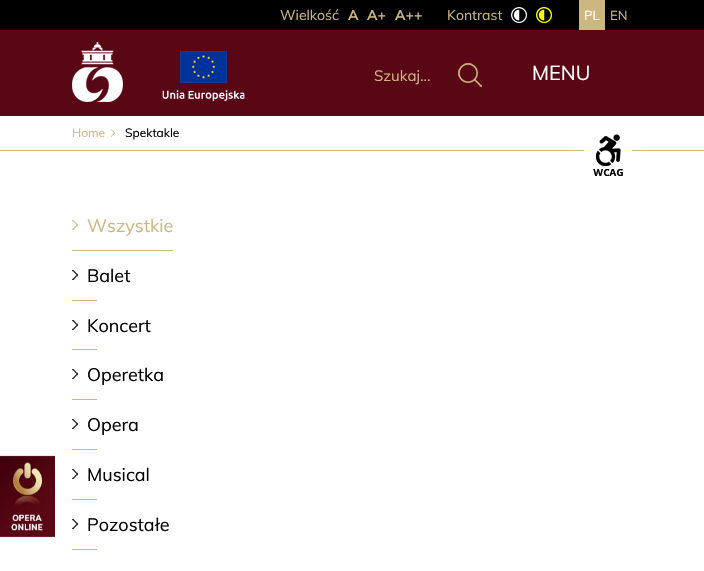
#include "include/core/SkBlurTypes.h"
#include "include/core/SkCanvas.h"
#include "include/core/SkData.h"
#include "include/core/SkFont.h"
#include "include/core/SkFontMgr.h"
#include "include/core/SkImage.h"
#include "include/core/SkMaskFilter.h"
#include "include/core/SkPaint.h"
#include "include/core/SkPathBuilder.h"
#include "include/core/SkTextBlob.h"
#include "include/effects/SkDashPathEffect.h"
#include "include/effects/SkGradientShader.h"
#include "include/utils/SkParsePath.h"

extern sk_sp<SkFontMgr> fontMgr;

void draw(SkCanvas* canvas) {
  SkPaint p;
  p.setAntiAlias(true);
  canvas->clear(SK_ColorWHITE);
  canvas->drawImageRect(SkImages::DeferredFromEncodedData(SkData::MakeFromFileName("images/1.png")), SkRect::MakeLTRB(0, 455, 55, 537), SkSamplingOptions());
  p.setColor(SkColorSetRGB(89, 7, 21));
  canvas->drawRect(SkRect::MakeLTRB(0, 30, 704, 116), p);
  p.setColor(SK_ColorBLACK);
  canvas->drawRect(SkRect::MakeLTRB(0, 0, 704, 30), p);
  canvas->drawImageRect(SkImages::DeferredFromEncodedData(SkData::MakeFromFileName("images/2.png")), SkRect::MakeLTRB(511, 7, 527, 23), SkSamplingOptions());
  canvas->drawImageRect(SkImages::DeferredFromEncodedData(SkData::MakeFromFileName("images/3.png")), SkRect::MakeLTRB(536, 7, 552, 23), SkSamplingOptions());
  p.setColor(SkColorSetRGB(206, 182, 131));
  canvas->drawRect(SkRect::MakeLTRB(579, 0, 605, 30), p);
  canvas->drawImageRect(SkImages::DeferredFromEncodedData(SkData::MakeFromFileName("images/4.png")), SkRect::MakeLTRB(72, 42, 123, 102), SkSamplingOptions());
  canvas->drawImageRect(SkImages::DeferredFromEncodedData(SkData::MakeFromFileName("images/5.png")), SkRect::MakeLTRB(162, 51, 245, 101), SkSamplingOptions());
  canvas->drawImageRect(SkImages::DeferredFromEncodedData(SkData::MakeFromFileName("images/6.png")), SkRect::MakeLTRB(458, 63, 482, 87), SkSamplingOptions());
  canvas->drawRect(SkRect::MakeLTRB(0, 150, 704, 151), p);
  p.setColor(SK_ColorWHITE);
  canvas->drawRect(SkRect::MakeLTRB(584, 150, 632, 151), p);
  canvas->drawImageRect(SkImages::DeferredFromEncodedData(SkData::MakeFromFileName("images/7.png")), SkRect::MakeLTRB(593, 134, 623, 176), SkSamplingOptions());
  canvas->drawImageRect(SkImages::DeferredFromEncodedData(SkData::MakeFromFileName("images/8.png")), SkRect::MakeLTRB(111, 129, 115, 137), SkSamplingOptions());
  canvas->drawImageRect(SkImages::DeferredFromEncodedData(SkData::MakeFromFileName("images/9.png")), SkRect::MakeLTRB(72, 220, 78, 230), SkSamplingOptions());
  p.setColor(SkColorSetRGB(206, 182, 131));
  canvas->drawRect(SkRect::MakeLTRB(72, 250, 173, 251), p);
  canvas->drawImageRect(SkImages::DeferredFromEncodedData(SkData::MakeFromFileName("images/10.png")), SkRect::MakeLTRB(72, 270, 78, 280), SkSamplingOptions());
  canvas->drawRect(SkRect::MakeLTRB(72, 300, 97, 301), p);
  canvas->drawImageRect(SkImages::DeferredFromEncodedData(SkData::MakeFromFileName("images/10.png")), SkRect::MakeLTRB(72, 320, 78, 330), SkSamplingOptions());
  canvas->drawRect(SkRect::MakeLTRB(72, 349, 97, 350), p);
  canvas->drawImageRect(SkImages::DeferredFromEncodedData(SkData::MakeFromFileName("images/10.png")), SkRect::MakeLTRB(72, 369, 78, 379), SkSamplingOptions());
  canvas->drawRect(SkRect::MakeLTRB(72, 399, 97, 400), p);
  canvas->drawImageRect(SkImages::DeferredFromEncodedData(SkData::MakeFromFileName("images/10.png")), SkRect::MakeLTRB(72, 419, 78, 429), SkSamplingOptions());
  canvas->drawRect(SkRect::MakeLTRB(72, 449, 97, 450), p);
  canvas->drawImageRect(SkImages::DeferredFromEncodedData(SkData::MakeFromFileName("images/10.png")), SkRect::MakeLTRB(72, 469, 78, 479), SkSamplingOptions());
  canvas->drawRect(SkRect::MakeLTRB(72, 499, 97, 500), p);
  canvas->drawImageRect(SkImages::DeferredFromEncodedData(SkData::MakeFromFileName("images/10.png")), SkRect::MakeLTRB(72, 519, 78, 529), SkSamplingOptions());
  canvas->drawRect(SkRect::MakeLTRB(72, 549, 97, 550), p);
  SkFont font1(fontMgr->matchFamilyStyle("Muli", SkFontStyle::Normal()), 14);
  font1.setSubpixel(true);
  canvas->drawString("Wielkość", 280, 20, font1, p);
  SkFont font2(fontMgr->matchFamilyStyle("Muli", SkFontStyle::Bold()), 14);
  font2.setSubpixel(true);
  canvas->drawString("A", 348, 20, font2, p);
  canvas->drawString("A+", 367, 20, font2, p);
  canvas->drawString("A++", 395, 20, font2, p);
  canvas->drawString("Kontrast", 447, 20, font1, p);
  SkFont font3(fontMgr->matchFamilyStyle("Muli", SkFontStyle::Normal()), 13);
  font3.setSubpixel(true);
  p.setColor(SK_ColorWHITE);
  canvas->drawString("PL", 584, 20, font3, p);
  p.setColor(SkColorSetRGB(206, 182, 131));
  canvas->drawString("EN", 610, 20, font3, p);
  SkFont font4(fontMgr->matchFamilyStyle("Muli", SkFontStyle::Normal()), 15);
  font4.setSubpixel(true);
  canvas->drawString("Szukaj...", 374, 81, font4, p);
  SkFont font5(fontMgr->matchFamilyStyle("Muli", SkFontStyle::Normal()), 20);
  font5.setSubpixel(true);
  p.setColor(SK_ColorWHITE);
  canvas->drawString("MENU", 532, 80, font5, p);
  SkFont font6(fontMgr->matchFamilyStyle("Muli", SkFontStyle::Normal()), 12);
  font6.setSubpixel(true);
  p.setColor(SkColorSetRGB(206, 182, 131));
  canvas->drawString("Home", 72, 137, font6, p);
  p.setColor(SK_ColorBLACK);
  canvas->drawString("Spektakle", 125, 137, font6, p);
  SkFont font7(fontMgr->matchFamilyStyle("Muli", SkFontStyle::Normal()), 18);
  font7.setSubpixel(true);
  p.setColor(SkColorSetRGB(206, 182, 131));
  canvas->drawString("Wszystkie", 87, 232, font7, p);
  p.setColor(SK_ColorBLACK);
  canvas->drawString("Balet", 87, 282, font7, p);
  canvas->drawString("Koncert", 87, 332, font7, p);
  canvas->drawString("Operetka", 87, 381, font7, p);
  canvas->drawString("Opera", 87, 431, font7, p);
  canvas->drawString("Musical", 87, 481, font7, p);
  canvas->drawString("Pozostałe", 87, 531, font7, p);
}
